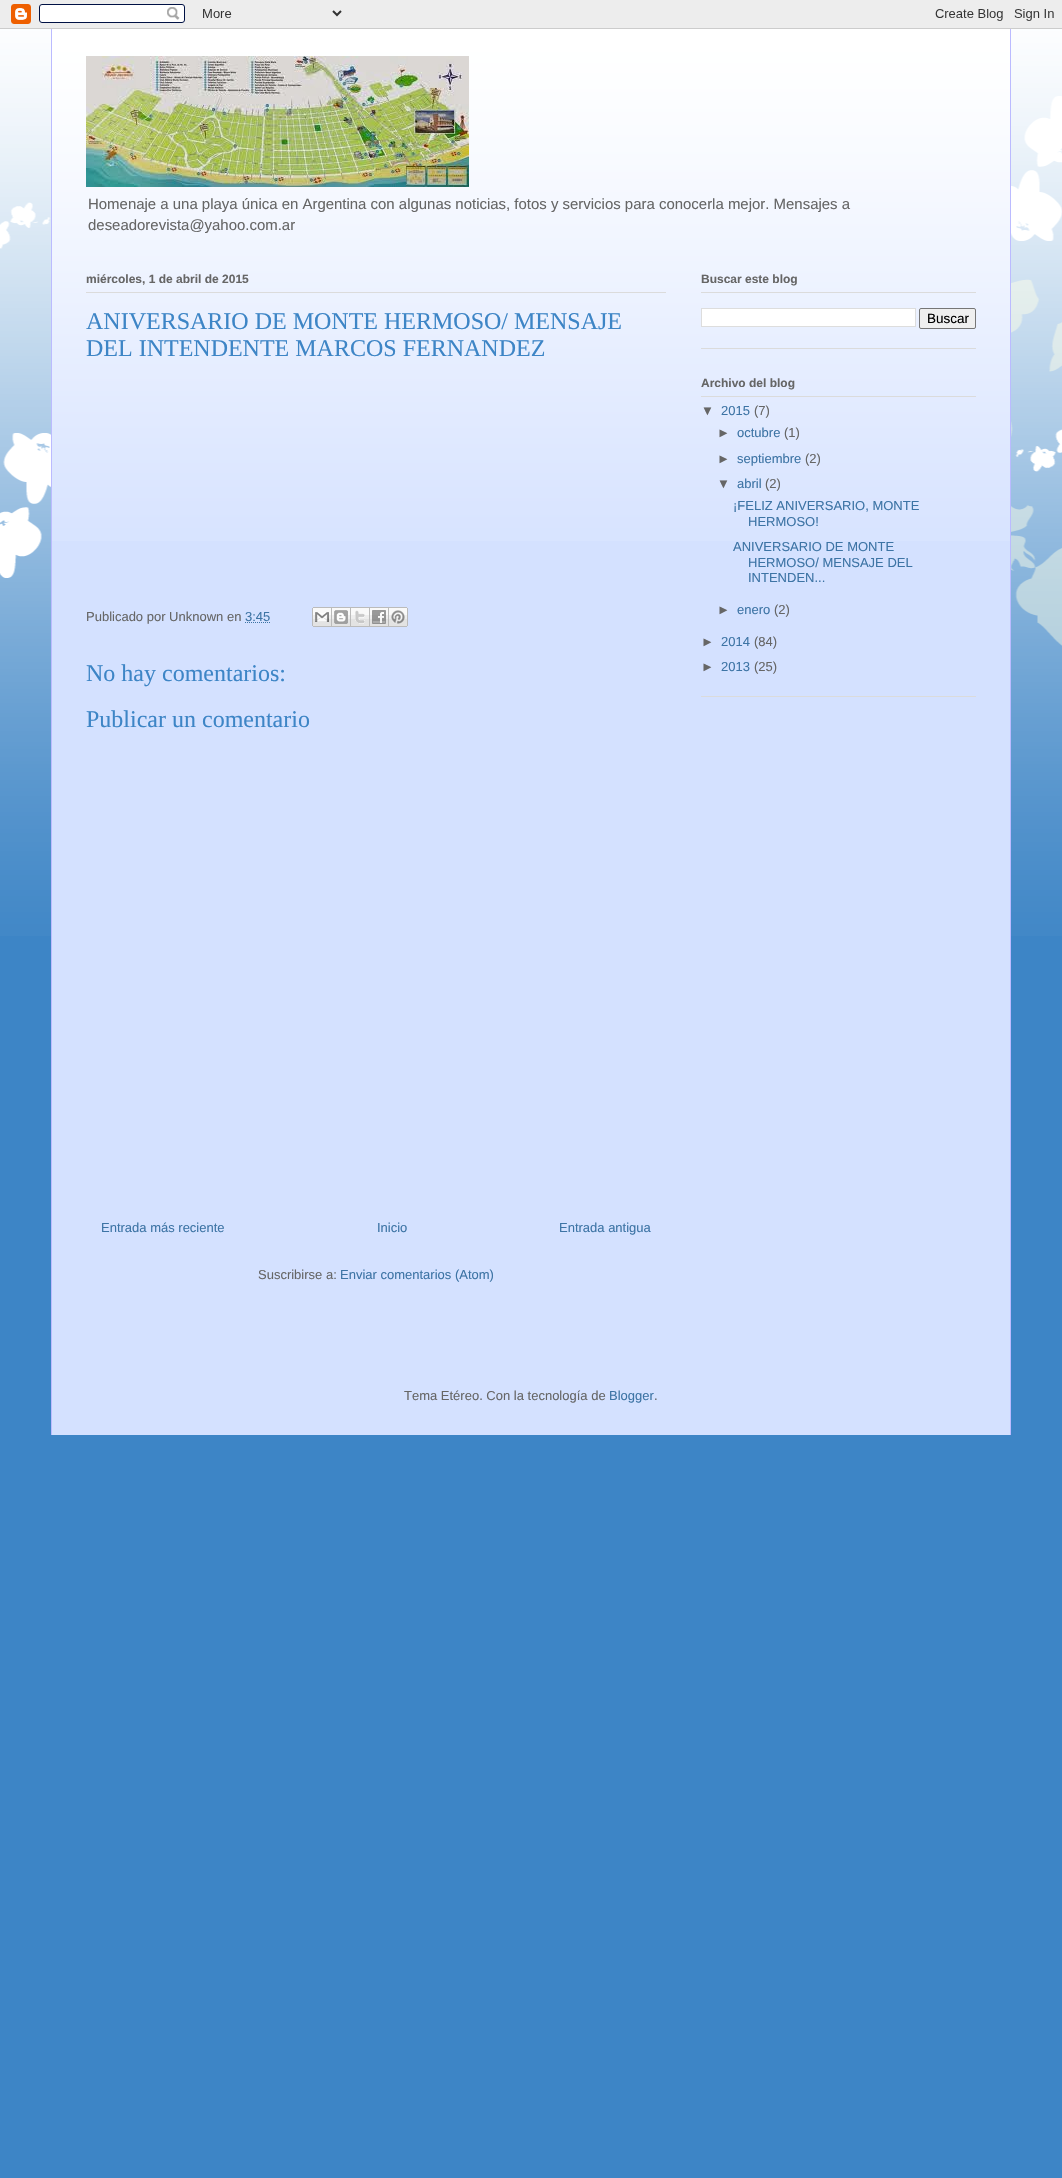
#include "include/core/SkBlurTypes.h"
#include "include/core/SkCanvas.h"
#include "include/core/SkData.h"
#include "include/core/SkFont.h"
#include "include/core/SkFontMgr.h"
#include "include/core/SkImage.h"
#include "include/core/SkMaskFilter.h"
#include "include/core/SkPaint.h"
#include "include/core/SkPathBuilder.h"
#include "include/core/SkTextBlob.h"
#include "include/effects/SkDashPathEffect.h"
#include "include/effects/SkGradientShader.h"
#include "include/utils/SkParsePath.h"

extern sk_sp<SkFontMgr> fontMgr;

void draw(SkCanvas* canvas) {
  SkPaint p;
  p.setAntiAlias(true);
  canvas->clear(SkColorSetRGB(61, 133, 198));
  canvas->drawImageRect(SkImages::DeferredFromEncodedData(SkData::MakeFromFileName("images/1.png")), SkRect::MakeLTRB(0, 0, 1062, 29), SkSamplingOptions());
  canvas->drawImageRect(SkImages::DeferredFromEncodedData(SkData::MakeFromFileName("images/2.png")), SkRect::MakeLTRB(0, 29, 1062, 936), SkSamplingOptions());
  p.setColor(SkColorSetRGB(212, 225, 255));
  canvas->drawRect(SkRect::MakeLTRB(52, 36, 1010, 1435), p);
  canvas->drawImageRect(SkImages::DeferredFromEncodedData(SkData::MakeFromFileName("images/3.png")), SkRect::MakeLTRB(52, 29, 1010, 541), SkSamplingOptions());
  p.setColor(SkColorSetRGB(187, 187, 255));
  canvas->drawRect(SkRect::MakeLTRB(1010, 29, 1011, 1435), p);
  canvas->drawRect(SkRect::MakeLTRB(51, 29, 52, 1435), p);
  canvas->drawImageRect(SkImages::DeferredFromEncodedData(SkData::MakeFromFileName("images/4.png")), SkRect::MakeLTRB(86, 56, 469, 187), SkSamplingOptions());
  p.setColor(SkColorSetRGB(219, 219, 219));
  canvas->drawRect(SkRect::MakeLTRB(86, 292, 666, 293), p);
  p.setStyle(SkPaint::kStroke_Style);
  p.setStrokeWidth(1);
  p.setColor(SkColorSetRGB(61, 116, 165));
  p.setPathEffect(SkDashPathEffect::Make({{1, 1}}, 0));
  canvas->drawPath(SkPathBuilder().moveTo(245, 622.5f).lineTo(270.5f, 622.5f).detach(), p);
  p.setPathEffect(nullptr);
  canvas->drawImageRect(SkImages::DeferredFromEncodedData(SkData::MakeFromFileName("images/5.png")), SkRect::MakeLTRB(312, 607, 332, 627), SkSamplingOptions());
  canvas->drawImageRect(SkImages::DeferredFromEncodedData(SkData::MakeFromFileName("images/6.png")), SkRect::MakeLTRB(332, 607, 351, 627), SkSamplingOptions());
  canvas->drawImageRect(SkImages::DeferredFromEncodedData(SkData::MakeFromFileName("images/7.png")), SkRect::MakeLTRB(351, 607, 370, 627), SkSamplingOptions());
  canvas->drawImageRect(SkImages::DeferredFromEncodedData(SkData::MakeFromFileName("images/8.png")), SkRect::MakeLTRB(370, 607, 389, 627), SkSamplingOptions());
  canvas->drawImageRect(SkImages::DeferredFromEncodedData(SkData::MakeFromFileName("images/9.png")), SkRect::MakeLTRB(389, 607, 408, 627), SkSamplingOptions());
  p.setStyle(SkPaint::kFill_Style);
  p.setColor(SkColorSetRGB(219, 219, 219));
  canvas->drawRect(SkRect::MakeLTRB(701, 348, 976, 349), p);
  canvas->drawRect(SkRect::MakeLTRB(701, 292, 976, 293), p);
  p.setColor(SK_ColorWHITE);
  canvas->drawRect(SkRect::MakeLTRB(701.5f, 308.5f, 915.5f, 326.5f), p);
  p.setStyle(SkPaint::kStroke_Style);
  p.setColor(SkColorSetRGB(221, 221, 221));
  canvas->drawRect(SkRect::MakeLTRB(701.5f, 308.5f, 915.5f, 326.5f), p);
  p.setStyle(SkPaint::kFill_Style);
  p.setColor(SkColorSetRGB(239, 239, 239));
  canvas->drawRoundRect(SkRect::MakeLTRB(919.5f, 308.5f, 975.5f, 328.5f), 1.5f, 1.5f, p);
  p.setStyle(SkPaint::kStroke_Style);
  p.setColor(SkColorSetRGB(118, 118, 118));
  canvas->drawRoundRect(SkRect::MakeLTRB(919.5f, 308.5f, 975.5f, 328.5f), 1.5f, 1.5f, p);
  p.setStyle(SkPaint::kFill_Style);
  p.setColor(SkColorSetRGB(219, 219, 219));
  canvas->drawRect(SkRect::MakeLTRB(701, 696, 976, 697), p);
  canvas->drawRect(SkRect::MakeLTRB(701, 396, 976, 397), p);
  SkFont font1(fontMgr->matchFamilyStyle("Liberation Sans", SkFontStyle::Normal()), 14.95f);
  font1.setSubpixel(true);
  p.setColor(SkColorSetRGB(102, 102, 102));
  canvas->drawString("Homenaje a una playa única en Argentina con algunas noticias, fotos y servicios para conocerla mejor. Mensajes a", 88, 209, font1, p);
  canvas->drawString("deseadorevista@yahoo.com.ar", 88, 230, font1, p);
  SkFont font2(fontMgr->matchFamilyStyle("Liberation Sans", SkFontStyle::Bold()), 12);
  font2.setSubpixel(true);
  canvas->drawString("miércoles, 1 de abril de 2015", 86, 283, font2, p);
  SkFont font3(fontMgr->matchFamilyStyle("Liberation Serif", SkFontStyle::Normal()), 24);
  font3.setSubpixel(true);
  p.setColor(SkColorSetRGB(61, 133, 198));
  canvas->drawString("ANIVERSARIO DE MONTE HERMOSO/ MENSAJE", 86, 329, font3, p);
  canvas->drawString("DEL INTENDENTE MARCOS FERNANDEZ", 86, 356, font3, p);
  SkFont font4(fontMgr->matchFamilyStyle("Liberation Sans", SkFontStyle::Normal()), 13);
  font4.setSubpixel(true);
  p.setColor(SkColorSetRGB(102, 102, 102));
  canvas->drawString("Publicado por Unknown en", 86, 621, font4, p);
  p.setColor(SkColorSetRGB(61, 116, 165));
  canvas->drawString("3:45", 245, 621, font4, p);
  p.setColor(SkColorSetRGB(61, 133, 198));
  canvas->drawString("No hay comentarios:", 86, 681, font3, p);
  canvas->drawString("Publicar un comentario", 86, 727, font3, p);
  p.setColor(SkColorSetRGB(61, 116, 165));
  canvas->drawString("Entrada más reciente", 101, 1232, font4, p);
  canvas->drawString("Inicio", 377, 1232, font4, p);
  canvas->drawString("Entrada antigua", 559, 1232, font4, p);
  p.setColor(SkColorSetRGB(102, 102, 102));
  canvas->drawString("Suscribirse a:", 258, 1279, font4, p);
  p.setColor(SkColorSetRGB(61, 116, 165));
  canvas->drawString("Enviar comentarios (Atom)", 340, 1279, font4, p);
  p.setColor(SkColorSetRGB(102, 102, 102));
  canvas->drawString("Buscar este blog", 701, 283, font2, p);
  SkFont font5(fontMgr->matchFamilyStyle("Liberation Sans", SkFontStyle::Normal()), 13.5f);
  font5.setSubpixel(true);
  p.setColor(SK_ColorBLACK);
  canvas->drawString("Buscar", 927, 323, font5, p);
  p.setColor(SkColorSetRGB(102, 102, 102));
  canvas->drawString("Archivo del blog", 701, 387, font2, p);
  canvas->drawString("▼", 701, 415, font4, p);
  p.setColor(SkColorSetRGB(61, 116, 165));
  canvas->drawString("2015", 721, 415, font4, p);
  p.setColor(SkColorSetRGB(102, 102, 102));
  canvas->drawString("(7)", 754, 415, font4, p);
  canvas->drawString("►", 717, 437, font4, p);
  p.setColor(SkColorSetRGB(61, 116, 165));
  canvas->drawString("octubre", 737, 437, font4, p);
  p.setColor(SkColorSetRGB(102, 102, 102));
  canvas->drawString("(1)", 784, 437, font4, p);
  canvas->drawString("►", 717, 463, font4, p);
  p.setColor(SkColorSetRGB(61, 116, 165));
  canvas->drawString("septiembre", 737, 463, font4, p);
  p.setColor(SkColorSetRGB(102, 102, 102));
  canvas->drawString("(2)", 805, 463, font4, p);
  canvas->drawString("▼", 717, 488, font4, p);
  p.setColor(SkColorSetRGB(61, 116, 165));
  canvas->drawString("abril", 737, 488, font4, p);
  p.setColor(SkColorSetRGB(102, 102, 102));
  canvas->drawString("(2)", 765, 488, font4, p);
  p.setColor(SkColorSetRGB(61, 116, 165));
  canvas->drawString("¡FELIZ ANIVERSARIO, MONTE", 733, 510, font4, p);
  canvas->drawString("HERMOSO!", 748, 526, font4, p);
  canvas->drawString("ANIVERSARIO DE MONTE", 733, 551, font4, p);
  canvas->drawString("HERMOSO/ MENSAJE DEL", 748, 567, font4, p);
  canvas->drawString("INTENDEN...", 748, 582, font4, p);
  p.setColor(SkColorSetRGB(102, 102, 102));
  canvas->drawString("►", 717, 614, font4, p);
  p.setColor(SkColorSetRGB(61, 116, 165));
  canvas->drawString("enero", 737, 614, font4, p);
  p.setColor(SkColorSetRGB(102, 102, 102));
  canvas->drawString("(2)", 774, 614, font4, p);
  canvas->drawString("►", 701, 646, font4, p);
  p.setColor(SkColorSetRGB(61, 116, 165));
  canvas->drawString("2014", 721, 646, font4, p);
  p.setColor(SkColorSetRGB(102, 102, 102));
  canvas->drawString("(84)", 754, 646, font4, p);
  canvas->drawString("►", 701, 671, font4, p);
  p.setColor(SkColorSetRGB(61, 116, 165));
  canvas->drawString("2013", 721, 671, font4, p);
  p.setColor(SkColorSetRGB(102, 102, 102));
  canvas->drawString("(25)", 754, 671, font4, p);
  canvas->drawString("Tema Etéreo. Con la tecnología de", 404, 1400, font4, p);
  p.setColor(SkColorSetRGB(61, 116, 165));
  canvas->drawString("Blogger", 609, 1400, font4, p);
  p.setColor(SkColorSetRGB(102, 102, 102));
  canvas->drawString(".", 654, 1400, font4, p);
}
